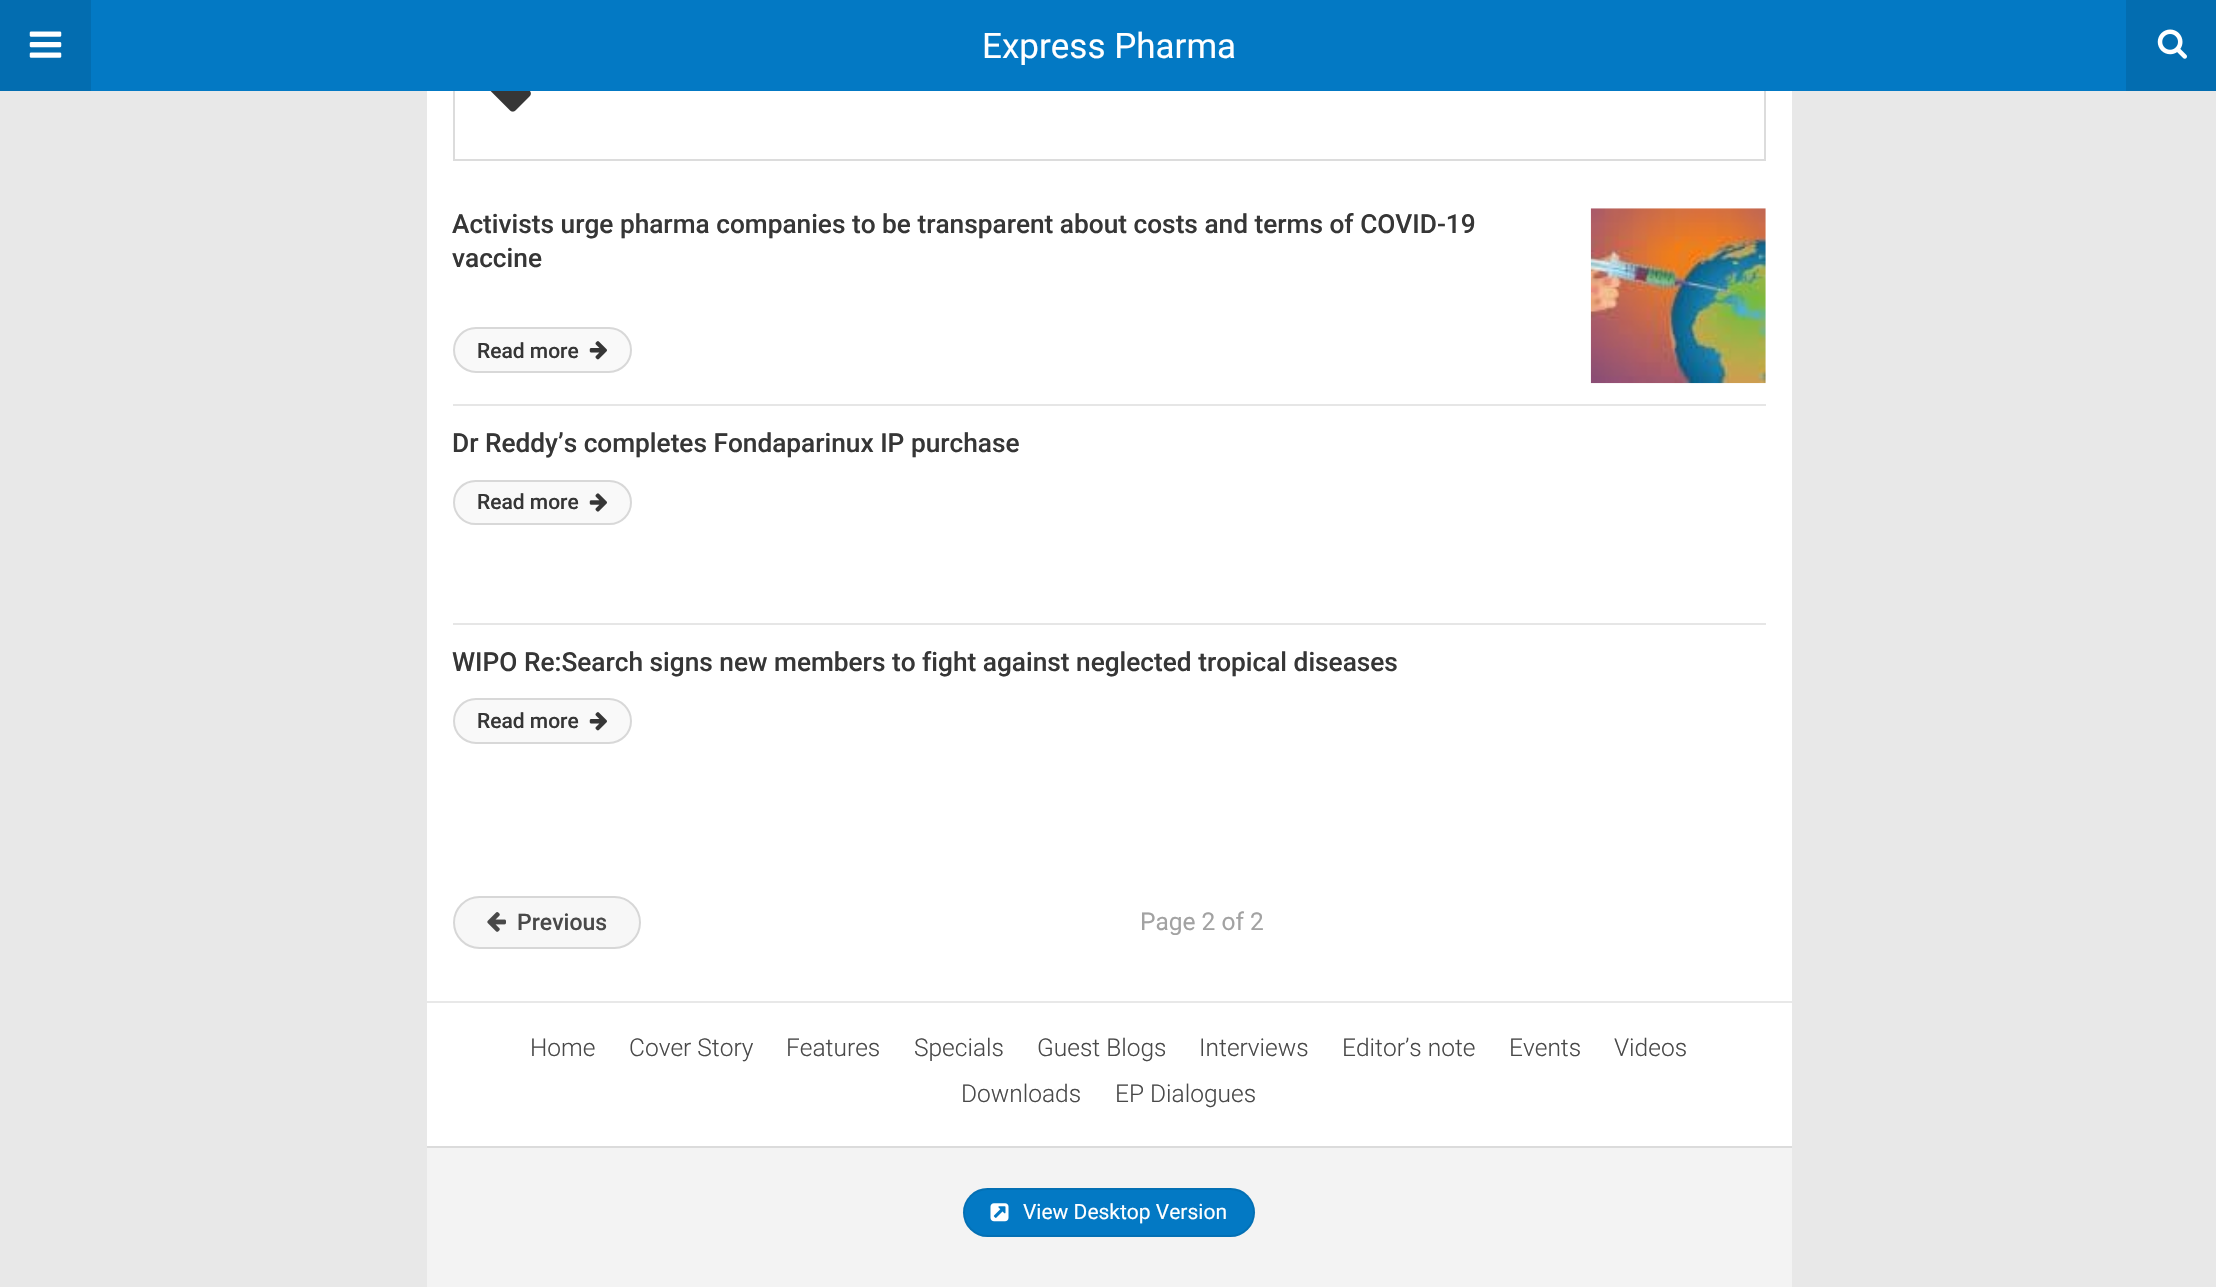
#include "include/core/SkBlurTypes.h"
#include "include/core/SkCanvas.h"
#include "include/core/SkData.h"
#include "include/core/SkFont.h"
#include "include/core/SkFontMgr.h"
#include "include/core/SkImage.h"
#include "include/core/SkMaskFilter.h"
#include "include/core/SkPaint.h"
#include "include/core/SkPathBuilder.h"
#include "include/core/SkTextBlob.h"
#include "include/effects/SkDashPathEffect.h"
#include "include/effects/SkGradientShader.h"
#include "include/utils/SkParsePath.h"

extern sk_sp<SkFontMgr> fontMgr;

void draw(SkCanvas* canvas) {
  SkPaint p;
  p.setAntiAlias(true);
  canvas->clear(SkColorSetRGB(232, 232, 232));
  p.setColor(SK_ColorWHITE);
  canvas->drawRect(SkRect::MakeLTRB(427, 91, 1792, 1001), p);
  p.setStyle(SkPaint::kStroke_Style);
  p.setStrokeWidth(2);
  p.setColor(SkColorSetRGB(220, 220, 220));
  canvas->drawRect(SkRect::MakeLTRB(454, -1, 1765, 160), p);
  p.setStyle(SkPaint::kFill_Style);
  p.setColor(SkColorSetRGB(3, 121, 196));
  canvas->drawRect(SkRect::MakeLTRB(91, 0, 2126, 91), p);
  p.setColor(SkColorSetRGB(3, 109, 176));
  canvas->drawRect(SkRect::MakeLTRB(0, 0, 91, 91), p);
  canvas->drawImageRect(SkImages::DeferredFromEncodedData(SkData::MakeFromFileName("images/1.png")), SkRect::MakeLTRB(29, 31, 62, 58), SkSamplingOptions());
  canvas->drawRect(SkRect::MakeLTRB(2126, 0, 2216, 91), p);
  canvas->drawImageRect(SkImages::DeferredFromEncodedData(SkData::MakeFromFileName("images/2.png")), SkRect::MakeLTRB(2157, 29, 2187, 59), SkSamplingOptions());
  canvas->drawImageRect(SkImages::DeferredFromEncodedData(SkData::MakeFromFileName("images/3.png")), SkRect::MakeLTRB(490, 91, 531, 112), SkSamplingOptions());
  p.setColor(SkColorSetRGB(230, 230, 230));
  canvas->drawRect(SkRect::MakeLTRB(453, 404, 1766, 406), p);
  canvas->drawImageRect(SkImages::DeferredFromEncodedData(SkData::MakeFromFileName("images/4.png")), SkRect::MakeLTRB(1590, 208, 1766, 384), SkSamplingOptions());
  p.setColor(SkColorSetRGB(249, 249, 249));
  canvas->drawRoundRect(SkRect::MakeLTRB(454, 328, 631, 372), 22, 22, p);
  p.setStyle(SkPaint::kStroke_Style);
  p.setColor(SkColorSetRGB(216, 216, 216));
  canvas->drawRoundRect(SkRect::MakeLTRB(454, 328, 631, 372), 22, 22, p);
  canvas->drawImageRect(SkImages::DeferredFromEncodedData(SkData::MakeFromFileName("images/5.png")), SkRect::MakeLTRB(589, 341, 607, 360), SkSamplingOptions());
  p.setStyle(SkPaint::kFill_Style);
  p.setColor(SkColorSetRGB(230, 230, 230));
  canvas->drawRect(SkRect::MakeLTRB(453, 623, 1766, 625), p);
  p.setColor(SkColorSetRGB(249, 249, 249));
  canvas->drawRoundRect(SkRect::MakeLTRB(454, 481, 631, 524), 21.5f, 21.5f, p);
  p.setStyle(SkPaint::kStroke_Style);
  p.setColor(SkColorSetRGB(216, 216, 216));
  canvas->drawRoundRect(SkRect::MakeLTRB(454, 481, 631, 524), 21.5f, 21.5f, p);
  canvas->drawImageRect(SkImages::DeferredFromEncodedData(SkData::MakeFromFileName("images/6.png")), SkRect::MakeLTRB(589, 493, 607, 512), SkSamplingOptions());
  p.setStyle(SkPaint::kFill_Style);
  p.setColor(SkColorSetRGB(249, 249, 249));
  canvas->drawRoundRect(SkRect::MakeLTRB(454, 699, 631, 743), 22, 22, p);
  p.setStyle(SkPaint::kStroke_Style);
  p.setColor(SkColorSetRGB(216, 216, 216));
  canvas->drawRoundRect(SkRect::MakeLTRB(454, 699, 631, 743), 22, 22, p);
  canvas->drawImageRect(SkImages::DeferredFromEncodedData(SkData::MakeFromFileName("images/5.png")), SkRect::MakeLTRB(589, 712, 607, 731), SkSamplingOptions());
  p.setStyle(SkPaint::kFill_Style);
  p.setColor(SkColorSetRGB(247, 247, 247));
  canvas->drawRoundRect(SkRect::MakeLTRB(454, 897, 640, 948), 25.5f, 25.5f, p);
  p.setStyle(SkPaint::kStroke_Style);
  p.setColor(SkColorSetRGB(215, 215, 215));
  canvas->drawRoundRect(SkRect::MakeLTRB(454, 897, 640, 948), 25.5f, 25.5f, p);
  canvas->drawImageRect(SkImages::DeferredFromEncodedData(SkData::MakeFromFileName("images/7.png")), SkRect::MakeLTRB(487, 912, 506, 932), SkSamplingOptions());
  p.setStyle(SkPaint::kFill_Style);
  p.setColor(SkColorSetRGB(243, 243, 243));
  canvas->drawRect(SkRect::MakeLTRB(427, 1148, 1792, 1287), p);
  p.setColor(SK_ColorWHITE);
  canvas->drawRect(SkRect::MakeLTRB(427, 1003, 1792, 1146), p);
  p.setColor(SkColorSetRGB(219, 219, 219));
  canvas->drawRect(SkRect::MakeLTRB(427, 1146, 1792, 1148), p);
  p.setColor(SkColorSetRGB(3, 121, 196));
  canvas->drawRoundRect(SkRect::MakeLTRB(963, 1188, 1255, 1237), 24.5f, 24.5f, p);
  p.setStyle(SkPaint::kStroke_Style);
  p.setColor(SkColorSetARGB(20, 0, 0, 0));
  canvas->drawRoundRect(SkRect::MakeLTRB(964, 1189, 1254, 1236), 23.5f, 23.5f, p);
  canvas->drawImageRect(SkImages::DeferredFromEncodedData(SkData::MakeFromFileName("images/8.png")), SkRect::MakeLTRB(990, 1203, 1009, 1222), SkSamplingOptions());
  SkFont font1(fontMgr->matchFamilyStyle("Roboto", SkFontStyle::Normal()), 35);
  font1.setSubpixel(true);
  p.setStyle(SkPaint::kFill_Style);
  p.setColor(SK_ColorWHITE);
  canvas->drawString("Express Pharma", 982, 58, font1, p);
  SkFont font2(fontMgr->matchFamilyStyle("Roboto", SkFontStyle(500, SkFontStyle::kNormal_Width, SkFontStyle::kUpright_Slant)), 26.25f);
  font2.setSubpixel(true);
  p.setColor(SkColorSetRGB(54, 54, 54));
  canvas->drawString("Activists urge pharma companies to be transparent about costs and terms of COVID-19", 452, 233, font2, p);
  canvas->drawString("vaccine", 452, 267, font2, p);
  SkFont font3(fontMgr->matchFamilyStyle("Roboto", SkFontStyle(500, SkFontStyle::kNormal_Width, SkFontStyle::kUpright_Slant)), 21);
  font3.setSubpixel(true);
  canvas->drawString("Read more", 477, 358, font3, p);
  canvas->drawString("Dr Reddy’s completes Fondaparinux IP purchase", 452, 452, font2, p);
  canvas->drawString("Read more", 477, 509, font3, p);
  canvas->drawString("WIPO Re:Search signs new members to fight against neglected tropical diseases", 452, 671, font2, p);
  canvas->drawString("Read more", 477, 728, font3, p);
  SkFont font4(fontMgr->matchFamilyStyle("Roboto", SkFontStyle(500, SkFontStyle::kNormal_Width, SkFontStyle::kUpright_Slant)), 23);
  font4.setSubpixel(true);
  p.setColor(SkColorSetRGB(73, 73, 73));
  canvas->drawString("Previous", 517, 930, font4, p);
  SkFont font5(fontMgr->matchFamilyStyle("Roboto", SkFontStyle::Normal()), 24.5f);
  font5.setSubpixel(true);
  p.setColor(SkColorSetRGB(162, 162, 162));
  canvas->drawString("Page 2 of 2", 1140, 930, font5, p);
  SkFont font6(fontMgr->matchFamilyStyle("Roboto", SkFontStyle(300, SkFontStyle::kNormal_Width, SkFontStyle::kUpright_Slant)), 24.5f);
  font6.setSubpixel(true);
  p.setColor(SkColorSetRGB(73, 73, 73));
  canvas->drawString("Home", 530, 1056, font6, p);
  canvas->drawString("Cover Story", 629, 1056, font6, p);
  canvas->drawString("Features", 786, 1056, font6, p);
  canvas->drawString("Specials", 914, 1056, font6, p);
  canvas->drawString("Guest Blogs", 1037, 1056, font6, p);
  canvas->drawString("Interviews", 1199, 1056, font6, p);
  canvas->drawString("Editor’s note", 1342, 1056, font6, p);
  canvas->drawString("Events", 1509, 1056, font6, p);
  canvas->drawString("Videos", 1614, 1056, font6, p);
  canvas->drawString("Downloads", 961, 1102, font6, p);
  canvas->drawString("EP Dialogues", 1115, 1102, font6, p);
  SkFont font7(fontMgr->matchFamilyStyle("Roboto", SkFontStyle::Normal()), 21);
  font7.setSubpixel(true);
  p.setColor(SK_ColorWHITE);
  canvas->drawString("View Desktop Version", 1023, 1219, font7, p);
}
